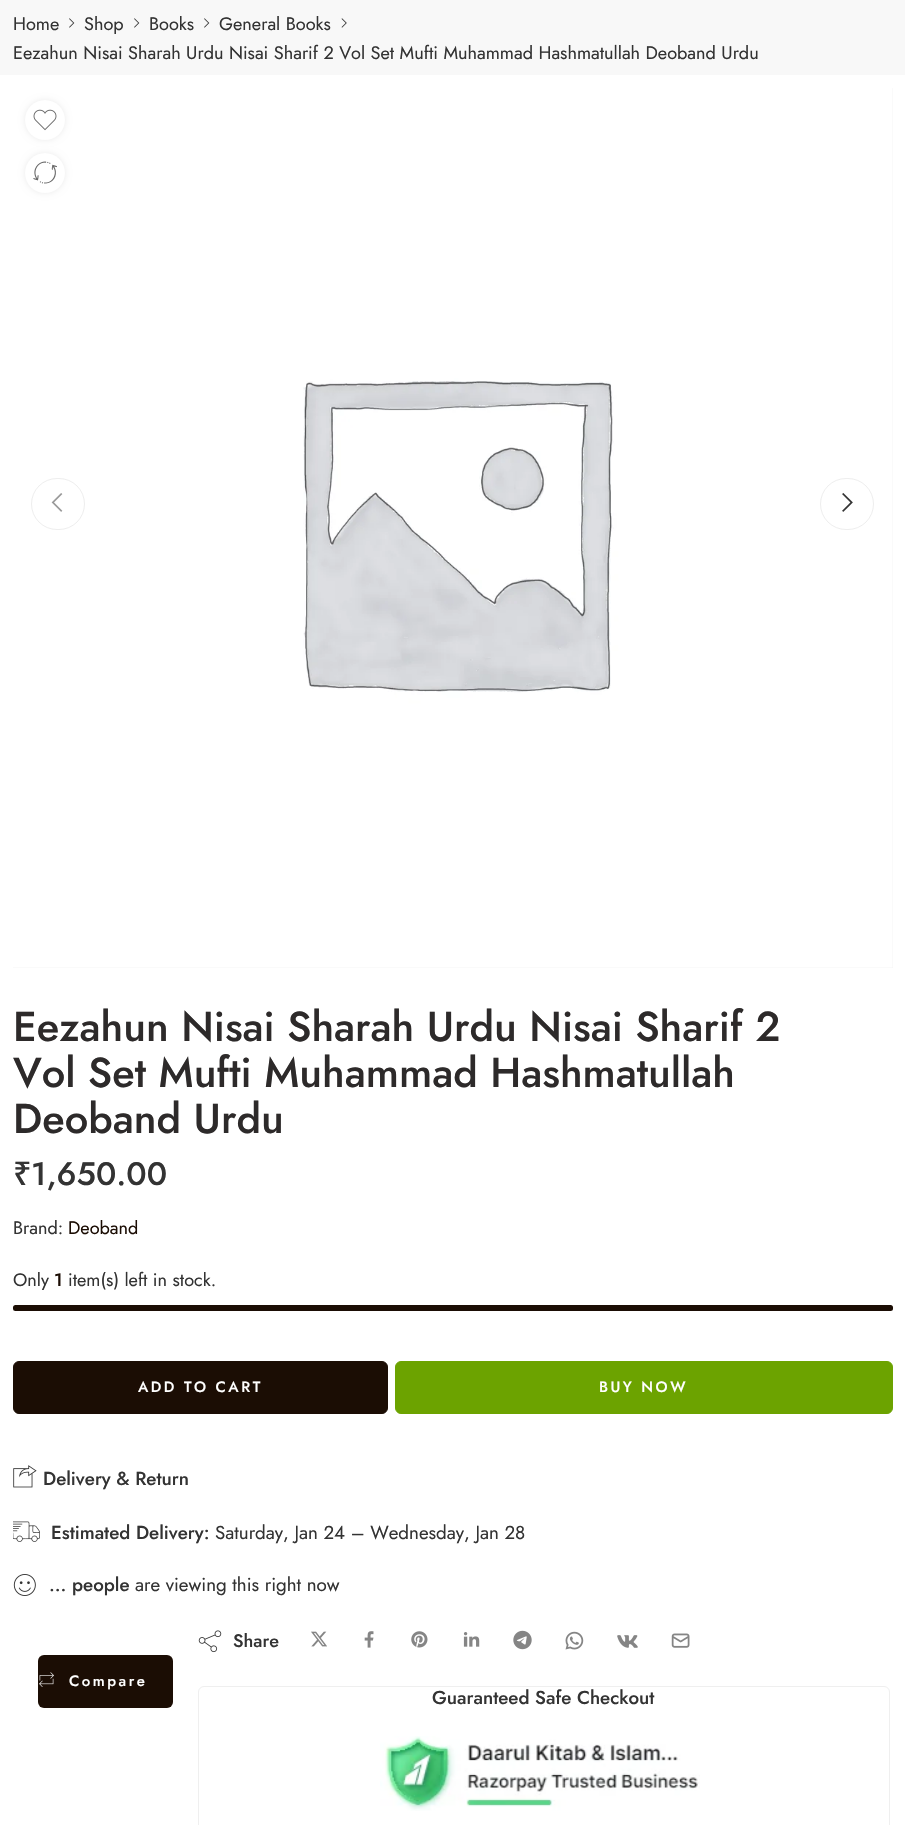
#include "include/core/SkBlurTypes.h"
#include "include/core/SkCanvas.h"
#include "include/core/SkData.h"
#include "include/core/SkFont.h"
#include "include/core/SkFontMgr.h"
#include "include/core/SkImage.h"
#include "include/core/SkMaskFilter.h"
#include "include/core/SkPaint.h"
#include "include/core/SkPathBuilder.h"
#include "include/core/SkTextBlob.h"
#include "include/effects/SkDashPathEffect.h"
#include "include/effects/SkGradientShader.h"
#include "include/utils/SkParsePath.h"

extern sk_sp<SkFontMgr> fontMgr;

void draw(SkCanvas* canvas) {
  SkPaint p;
  p.setAntiAlias(true);
  auto spacedText = [&](const char* s, float x, float y, const SkFont& font, const SkPaint& ink, float letter, float word) {
    std::vector<SkGlyphID> glyphs(font.countText(s, strlen(s), SkTextEncoding::kUTF8));
    std::vector<float> xs(glyphs.size());
    font.textToGlyphs(s, strlen(s), SkTextEncoding::kUTF8, glyphs);
    font.getXPos(glyphs, xs, x);
    float extra = 0;
    for (size_t i = 0; i < glyphs.size(); i++) {
      xs[i] += extra;
      extra += letter + word * (glyphs[i] == font.unicharToGlyph(' '));
    }
    canvas->drawTextBlob(SkTextBlob::MakeFromPosHGlyphs(glyphs, xs, y, font), 0, 0, ink);
  };
  canvas->clear(SK_ColorWHITE);
  p.setColor(SkColorSetRGB(248, 248, 248));
  canvas->drawRect(SkRect::MakeLTRB(0, 0, 905, 75), p);
  canvas->drawImageRect(SkImages::DeferredFromEncodedData(SkData::MakeFromFileName("images/1.png")), SkRect::MakeLTRB(69, 18, 75, 28), SkSamplingOptions());
  canvas->drawImageRect(SkImages::DeferredFromEncodedData(SkData::MakeFromFileName("images/1.png")), SkRect::MakeLTRB(134, 18, 140, 28), SkSamplingOptions());
  canvas->drawImageRect(SkImages::DeferredFromEncodedData(SkData::MakeFromFileName("images/1.png")), SkRect::MakeLTRB(204, 18, 210, 28), SkSamplingOptions());
  canvas->drawImageRect(SkImages::DeferredFromEncodedData(SkData::MakeFromFileName("images/2.png")), SkRect::MakeLTRB(341, 18, 347, 28), SkSamplingOptions());
  p.setColor(SkColorSetRGB(244, 244, 244));
  canvas->drawRect(SkRect::MakeLTRB(13, 88, 893, 968), p);
  canvas->drawImageRect(SkImages::DeferredFromEncodedData(SkData::MakeFromFileName("images/3.png")), SkRect::MakeLTRB(13, 88, 893, 968), SkSamplingOptions());
  p.setStyle(SkPaint::kStroke_Style);
  p.setStrokeWidth(1);
  p.setColor(SkColorSetRGB(238, 238, 238));
  canvas->drawRoundRect(SkRect::MakeLTRB(31.5f, 478.5f, 84.5f, 529.5f), 25.5f, 25.5f, p);
  canvas->drawImageRect(SkImages::DeferredFromEncodedData(SkData::MakeFromFileName("images/4.png")), SkRect::MakeLTRB(51, 493, 63, 512), SkSamplingOptions());
  canvas->drawRoundRect(SkRect::MakeLTRB(820.5f, 478.5f, 873.5f, 529.5f), 25.5f, 25.5f, p);
  canvas->drawImageRect(SkImages::DeferredFromEncodedData(SkData::MakeFromFileName("images/5.png")), SkRect::MakeLTRB(842, 493, 853, 512), SkSamplingOptions());
  p.setStyle(SkPaint::kFill_Style);
  p.setColor(SkColorSetARGB(20, 0, 0, 0));
  p.setMaskFilter(SkMaskFilter::MakeBlur(kNormal_SkBlurStyle, 3));
  canvas->drawRoundRect(SkRect::MakeLTRB(25, 100, 65, 140), 20, 20, p);
  p.setMaskFilter(nullptr);
  p.setColor(SK_ColorWHITE);
  canvas->drawCircle(45, 120, 20, p);
  canvas->drawImageRect(SkImages::DeferredFromEncodedData(SkData::MakeFromFileName("images/6.png")), SkRect::MakeLTRB(33, 109, 57, 131), SkSamplingOptions());
  p.setColor(SkColorSetARGB(20, 0, 0, 0));
  p.setMaskFilter(SkMaskFilter::MakeBlur(kNormal_SkBlurStyle, 3));
  canvas->drawRoundRect(SkRect::MakeLTRB(25, 153, 65, 193), 20, 20, p);
  p.setMaskFilter(nullptr);
  p.setColor(SK_ColorWHITE);
  canvas->drawCircle(45, 173, 20, p);
  canvas->drawImageRect(SkImages::DeferredFromEncodedData(SkData::MakeFromFileName("images/7.png")), SkRect::MakeLTRB(33, 161, 57, 184), SkSamplingOptions());
  p.setColor(SkColorSetRGB(27, 13, 4));
  canvas->drawRoundRect(SkRect::MakeLTRB(13, 1305, 893, 1311), 2.5f, 2.5f, p);
  canvas->drawRoundRect(SkRect::MakeLTRB(13.5f, 1361.5f, 387.5f, 1413.5f), 5.5f, 5.5f, p);
  p.setStyle(SkPaint::kStroke_Style);
  canvas->drawRoundRect(SkRect::MakeLTRB(13.5f, 1361.5f, 387.5f, 1413.5f), 5.5f, 5.5f, p);
  p.setStyle(SkPaint::kFill_Style);
  p.setColor(SkColorSetRGB(108, 163, 0));
  canvas->drawRoundRect(SkRect::MakeLTRB(395.5f, 1361.5f, 892.5f, 1413.5f), 5.5f, 5.5f, p);
  p.setStyle(SkPaint::kStroke_Style);
  canvas->drawRoundRect(SkRect::MakeLTRB(395.5f, 1361.5f, 892.5f, 1413.5f), 5.5f, 5.5f, p);
  canvas->drawImageRect(SkImages::DeferredFromEncodedData(SkData::MakeFromFileName("images/8.png")), SkRect::MakeLTRB(13, 1465, 37, 1488), SkSamplingOptions());
  canvas->drawImageRect(SkImages::DeferredFromEncodedData(SkData::MakeFromFileName("images/9.png")), SkRect::MakeLTRB(13, 1521, 40, 1542), SkSamplingOptions());
  canvas->drawImageRect(SkImages::DeferredFromEncodedData(SkData::MakeFromFileName("images/10.png")), SkRect::MakeLTRB(13, 1574, 36, 1596), SkSamplingOptions());
  canvas->drawImageRect(SkImages::DeferredFromEncodedData(SkData::MakeFromFileName("images/11.png")), SkRect::MakeLTRB(198, 1630, 222, 1653), SkSamplingOptions());
  canvas->drawImageRect(SkImages::DeferredFromEncodedData(SkData::MakeFromFileName("images/12.png")), SkRect::MakeLTRB(311, 1631, 327, 1647), SkSamplingOptions());
  canvas->drawImageRect(SkImages::DeferredFromEncodedData(SkData::MakeFromFileName("images/13.png")), SkRect::MakeLTRB(364, 1631, 374, 1648), SkSamplingOptions());
  canvas->drawImageRect(SkImages::DeferredFromEncodedData(SkData::MakeFromFileName("images/14.png")), SkRect::MakeLTRB(411, 1631, 428, 1648), SkSamplingOptions());
  canvas->drawImageRect(SkImages::DeferredFromEncodedData(SkData::MakeFromFileName("images/15.png")), SkRect::MakeLTRB(463, 1632, 480, 1647), SkSamplingOptions());
  canvas->drawImageRect(SkImages::DeferredFromEncodedData(SkData::MakeFromFileName("images/16.png")), SkRect::MakeLTRB(513, 1630, 532, 1650), SkSamplingOptions());
  canvas->drawImageRect(SkImages::DeferredFromEncodedData(SkData::MakeFromFileName("images/17.png")), SkRect::MakeLTRB(565, 1631, 584, 1650), SkSamplingOptions());
  canvas->drawImageRect(SkImages::DeferredFromEncodedData(SkData::MakeFromFileName("images/18.png")), SkRect::MakeLTRB(617, 1635, 638, 1648), SkSamplingOptions());
  canvas->drawImageRect(SkImages::DeferredFromEncodedData(SkData::MakeFromFileName("images/19.png")), SkRect::MakeLTRB(671, 1633, 690, 1648), SkSamplingOptions());
  p.setStyle(SkPaint::kFill_Style);
  p.setColor(SkColorSetRGB(27, 13, 4));
  canvas->drawRoundRect(SkRect::MakeLTRB(38, 1655, 173, 1708), 6, 6, p);
  canvas->drawImageRect(SkImages::DeferredFromEncodedData(SkData::MakeFromFileName("images/20.png")), SkRect::MakeLTRB(39, 1672, 54, 1687), SkSamplingOptions());
  p.setStyle(SkPaint::kStroke_Style);
  p.setColor(SkColorSetRGB(239, 239, 239));
  canvas->drawRoundRect(SkRect::MakeLTRB(198.5f, 1686.5f, 889.5f, 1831.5f), 5.5f, 5.5f, p);
  canvas->drawImageRect(SkImages::DeferredFromEncodedData(SkData::MakeFromFileName("images/21.png")), SkRect::MakeLTRB(380, 1736, 700, 1811), SkSamplingOptions());
  SkFont font1(fontMgr->matchFamilyStyle("Jost", SkFontStyle::Normal()), 18.1f);
  font1.setSubpixel(true);
  p.setStyle(SkPaint::kFill_Style);
  p.setColor(SkColorSetRGB(51, 51, 51));
  canvas->drawString("Home", 13, 30, font1, p);
  canvas->drawString("Shop", 84, 30, font1, p);
  canvas->drawString("Books", 149, 30, font1, p);
  canvas->drawString("General Books", 219, 30, font1, p);
  canvas->drawString("Eezahun Nisai Sharah Urdu Nisai Sharif 2 Vol Set Mufti Muhammad Hashmatullah Deoband Urdu", 13, 59, font1, p);
  SkFont font2(fontMgr->matchFamilyStyle("Jost", SkFontStyle(500, SkFontStyle::kNormal_Width, SkFontStyle::kUpright_Slant)), 41.7f);
  font2.setSubpixel(true);
  p.setColor(SkColorSetRGB(45, 42, 42));
  canvas->drawString("Eezahun Nisai Sharah Urdu Nisai Sharif 2", 13, 1041, font2, p);
  canvas->drawString("Vol Set Mufti Muhammad Hashmatullah", 13, 1087, font2, p);
  canvas->drawString("Deoband Urdu", 13, 1133, font2, p);
  SkFont font3(fontMgr->matchFamilyStyle("Noto Sans", SkFontStyle(500, SkFontStyle::kNormal_Width, SkFontStyle::kUpright_Slant)), 32.5f);
  font3.setSubpixel(true);
  p.setColor(SkColorSetRGB(51, 51, 51));
  canvas->drawString("₹", 13, 1185, font3, p);
  SkFont font4(fontMgr->matchFamilyStyle("Jost", SkFontStyle(500, SkFontStyle::kNormal_Width, SkFontStyle::kUpright_Slant)), 32.5f);
  font4.setSubpixel(true);
  canvas->drawString("1,650.00", 31, 1185, font4, p);
  canvas->drawString("Brand:", 13, 1234, font1, p);
  p.setColor(SkColorSetRGB(27, 13, 4));
  canvas->drawString("Deoband", 68, 1234, font1, p);
  p.setColor(SkColorSetRGB(51, 51, 51));
  canvas->drawString("Only", 13, 1286, font1, p);
  SkFont font5(fontMgr->matchFamilyStyle("Jost", SkFontStyle(500, SkFontStyle::kNormal_Width, SkFontStyle::kUpright_Slant)), 18.1f);
  font5.setSubpixel(true);
  p.setColor(SkColorSetRGB(27, 13, 4));
  canvas->drawString("1", 54, 1286, font5, p);
  p.setColor(SkColorSetRGB(51, 51, 51));
  canvas->drawString("item(s) left in stock.", 68, 1286, font1, p);
  SkFont font6(fontMgr->matchFamilyStyle("Jost", SkFontStyle(500, SkFontStyle::kNormal_Width, SkFontStyle::kUpright_Slant)), 15);
  font6.setSubpixel(true);
  p.setColor(SK_ColorWHITE);
  spacedText("ADD TO CART", 138, 1392, font6, p, 2.5f, 0);
  spacedText("BUY NOW", 599, 1392, font6, p, 2.5f, 0);
  SkFont font7(fontMgr->matchFamilyStyle("Jost", SkFontStyle(500, SkFontStyle::kNormal_Width, SkFontStyle::kUpright_Slant)), 18.75f);
  font7.setSubpixel(true);
  p.setColor(SkColorSetRGB(51, 51, 51));
  canvas->drawString("Delivery & Return", 43, 1485, font7, p);
  canvas->drawString("Estimated Delivery:", 51, 1539, font7, p);
  SkFont font8(fontMgr->matchFamilyStyle("Jost", SkFontStyle::Normal()), 18.75f);
  font8.setSubpixel(true);
  canvas->drawString("Saturday, Jan 24 – Wednesday, Jan 28", 215, 1539, font8, p);
  canvas->drawString("... people", 49, 1591, font7, p);
  canvas->drawString("are viewing this right now", 135, 1591, font8, p);
  canvas->drawString("Share", 233, 1647, font5, p);
  p.setColor(SK_ColorWHITE);
  spacedText("Compare", 69, 1686, font6, p, 2.5f, 0);
  p.setColor(SkColorSetRGB(51, 51, 51));
  canvas->drawString("Guaranteed Safe Checkout", 432, 1704, font7, p);
}
